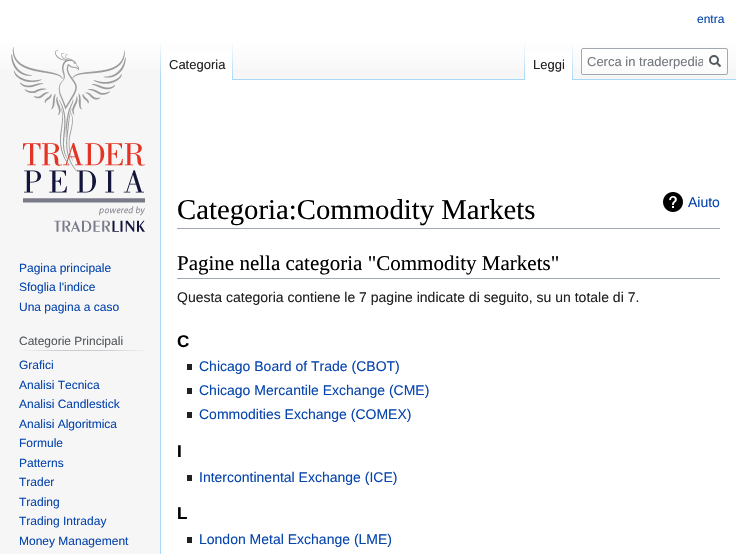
#include "include/core/SkBlurTypes.h"
#include "include/core/SkCanvas.h"
#include "include/core/SkData.h"
#include "include/core/SkFont.h"
#include "include/core/SkFontMgr.h"
#include "include/core/SkImage.h"
#include "include/core/SkMaskFilter.h"
#include "include/core/SkPaint.h"
#include "include/core/SkPathBuilder.h"
#include "include/core/SkTextBlob.h"
#include "include/effects/SkDashPathEffect.h"
#include "include/effects/SkGradientShader.h"
#include "include/utils/SkParsePath.h"

extern sk_sp<SkFontMgr> fontMgr;

void draw(SkCanvas* canvas) {
  SkPaint p;
  p.setAntiAlias(true);
  canvas->clear(SkColorSetRGB(246, 246, 246));
  {
    const SkColor colors[] = {SK_ColorWHITE, SkColorSetRGB(246, 246, 246)};
    const float stops[] = {0.5f, 1};
    const SkPoint ends[] = {{368, 0}, {368, 80}};
    p.setShader(SkGradientShader::MakeLinear(ends, colors, stops, 2, SkTileMode::kClamp));
    p.setAlpha(255);
  }
  canvas->drawRect(SkRect::MakeLTRB(0, 0, 736, 69), p);
  p.setShader(nullptr);
  p.setColor(SkColorSetRGB(167, 215, 249));
  canvas->drawRect(SkRect::MakeLTRB(160, 79, 161, 554), p);
  {
    const SkColor colors[] = {SkColorSetARGB(0, 167, 215, 249), SkColorSetRGB(167, 215, 249)};
    const float stops[] = {0, 1};
    const SkPoint ends[] = {{161, 40}, {161, 80}};
    p.setShader(SkGradientShader::MakeLinear(ends, colors, stops, 2, SkTileMode::kClamp));
    p.setAlpha(255);
  }
  canvas->drawRect(SkRect::MakeLTRB(160, 40, 161, 80), p);
  p.setShader(nullptr);
  p.setColor(SK_ColorWHITE);
  canvas->drawRect(SkRect::MakeLTRB(161, 51, 232, 80), p);
  {
    const SkColor colors[] = {SK_ColorWHITE, SkColorSetRGB(167, 215, 249)};
    const float stops[] = {0, 1};
    const SkPoint ends[] = {{233, 40}, {233, 80}};
    p.setShader(SkGradientShader::MakeLinear(ends, colors, stops, 2, SkTileMode::kClamp));
    p.setAlpha(255);
  }
  canvas->drawRect(SkRect::MakeLTRB(232, 40, 233, 80), p);
  p.setShader(nullptr);
  p.setColor(SkColorSetRGB(167, 215, 249));
  canvas->drawRect(SkRect::MakeLTRB(233, 79, 736, 80), p);
  {
    const SkColor colors[] = {SkColorSetARGB(0, 167, 215, 249), SkColorSetRGB(167, 215, 249)};
    const float stops[] = {0, 1};
    const SkPoint ends[] = {{525, 40}, {525, 80}};
    p.setShader(SkGradientShader::MakeLinear(ends, colors, stops, 2, SkTileMode::kClamp));
    p.setAlpha(255);
  }
  canvas->drawRect(SkRect::MakeLTRB(524, 40, 525, 80), p);
  p.setShader(nullptr);
  p.setColor(SK_ColorWHITE);
  canvas->drawRect(SkRect::MakeLTRB(525, 51, 572, 80), p);
  {
    const SkColor colors[] = {SK_ColorWHITE, SkColorSetRGB(167, 215, 249)};
    const float stops[] = {0, 1};
    const SkPoint ends[] = {{573, 40}, {573, 80}};
    p.setShader(SkGradientShader::MakeLinear(ends, colors, stops, 2, SkTileMode::kClamp));
    p.setAlpha(255);
  }
  canvas->drawRect(SkRect::MakeLTRB(572, 40, 573, 80), p);
  p.setShader(nullptr);
  p.setColor(SkColorSetARGB(128, 255, 255, 255));
  canvas->drawRoundRect(SkRect::MakeLTRB(581.5f, 48.5f, 727.5f, 74.5f), 1.5f, 1.5f, p);
  p.setStyle(SkPaint::kStroke_Style);
  p.setStrokeWidth(1);
  p.setColor(SkColorSetRGB(162, 169, 177));
  canvas->drawRoundRect(SkRect::MakeLTRB(581.5f, 48.5f, 727.5f, 74.5f), 1.5f, 1.5f, p);
  p.setStrokeWidth(2);
  p.setColor(SkColorSetRGB(84, 89, 93));
  canvas->drawPath(SkPathBuilder().moveTo(720.5f, 66.5f).lineTo(716.5f, 62.5f).detach(), p);
  canvas->drawCircle(714, 60, 4, p);
  canvas->drawImageRect(SkImages::DeferredFromEncodedData(SkData::MakeFromFileName("images/1.png")), SkRect::MakeLTRB(11, 47, 145, 232), SkSamplingOptions());
  p.setStyle(SkPaint::kFill_Style);
  {
    const SkColor colors[] = {SkColorSetRGB(246, 246, 246), SkColorSetRGB(200, 204, 209), SkColorSetRGB(200, 204, 209), SkColorSetRGB(246, 246, 246)};
    const float stops[] = {0, 0.33f, 0.66f, 1};
    const SkPoint ends[] = {{19, 351}, {150, 351}};
    p.setShader(SkGradientShader::MakeLinear(ends, colors, stops, 4, SkTileMode::kClamp));
    p.setAlpha(255);
  }
  canvas->drawRect(SkRect::MakeLTRB(19, 350, 150, 351), p);
  p.setShader(nullptr);
  p.setColor(SK_ColorWHITE);
  canvas->drawRect(SkRect::MakeLTRB(161, 80, 736, 554), p);
  p.setColor(SkColorSetRGB(162, 169, 177));
  canvas->drawRect(SkRect::MakeLTRB(177, 228, 720, 229), p);
  canvas->drawImageRect(SkImages::DeferredFromEncodedData(SkData::MakeFromFileName("images/2.png")), SkRect::MakeLTRB(663, 192, 683, 212), SkSamplingOptions());
  canvas->drawRect(SkRect::MakeLTRB(177, 278, 720, 279), p);
  p.setColor(SkColorSetRGB(32, 33, 34));
  canvas->drawRect(SkRect::MakeLTRB(187, 364, 192, 370), p);
  canvas->drawRect(SkRect::MakeLTRB(187, 388, 192, 394), p);
  canvas->drawRect(SkRect::MakeLTRB(187, 412, 192, 418), p);
  canvas->drawRect(SkRect::MakeLTRB(187, 475, 192, 481), p);
  canvas->drawRect(SkRect::MakeLTRB(187, 537, 192, 543), p);
  SkFont font1(fontMgr->matchFamilyStyle("Liberation Sans", SkFontStyle::Normal()), 12);
  font1.setSubpixel(true);
  p.setColor(SkColorSetRGB(6, 69, 173));
  canvas->drawString("entra", 697, 23, font1, p);
  SkFont font2(fontMgr->matchFamilyStyle("Liberation Sans", SkFontStyle::Normal()), 13);
  font2.setSubpixel(true);
  p.setColor(SkColorSetRGB(32, 33, 34));
  canvas->drawString("Categoria", 169, 69, font2, p);
  canvas->drawString("Leggi", 533, 69, font2, p);
  canvas->save();
  canvas->clipRect(SkRect::MakeLTRB(587, 54, 703, 69));
  p.setColor(SkColorSetRGB(114, 119, 125));
  canvas->drawString("Cerca in traderpedia", 587, 66, font2, p);
  canvas->restore();
  p.setColor(SkColorSetRGB(6, 69, 173));
  canvas->drawString("Pagina principale", 19, 272, font1, p);
  canvas->drawString("Sfoglia l'indice", 19, 291, font1, p);
  canvas->drawString("Una pagina a caso", 19, 311, font1, p);
  p.setColor(SkColorSetRGB(84, 89, 93));
  canvas->drawString("Categorie Principali", 19, 345, font1, p);
  p.setColor(SkColorSetRGB(6, 69, 173));
  canvas->drawString("Grafici", 19, 369, font1, p);
  canvas->drawString("Analisi Tecnica", 19, 389, font1, p);
  canvas->drawString("Analisi Candlestick", 19, 408, font1, p);
  canvas->drawString("Analisi Algoritmica", 19, 428, font1, p);
  canvas->drawString("Formule", 19, 447, font1, p);
  canvas->drawString("Patterns", 19, 467, font1, p);
  canvas->drawString("Trader", 19, 486, font1, p);
  canvas->drawString("Trading", 19, 506, font1, p);
  canvas->drawString("Trading Intraday", 19, 525, font1, p);
  canvas->drawString("Money Management", 19, 545, font1, p);
  SkFont font3(fontMgr->matchFamilyStyle("Liberation Serif", SkFontStyle::Normal()), 28.75f);
  font3.setSubpixel(true);
  p.setColor(SK_ColorBLACK);
  canvas->drawString("Categoria:Commodity Markets", 177, 219, font3, p);
  SkFont font4(fontMgr->matchFamilyStyle("Liberation Sans", SkFontStyle::Normal()), 14);
  font4.setSubpixel(true);
  p.setColor(SkColorSetRGB(6, 69, 173));
  canvas->drawString("Aiuto", 688, 207, font4, p);
  SkFont font5(fontMgr->matchFamilyStyle("Liberation Serif", SkFontStyle::Normal()), 21);
  font5.setSubpixel(true);
  p.setColor(SK_ColorBLACK);
  canvas->drawString("Pagine nella categoria \"Commodity Markets\"", 177, 270, font5, p);
  p.setColor(SkColorSetRGB(32, 33, 34));
  canvas->drawString("Questa categoria contiene le 7 pagine indicate di seguito, su un totale di 7.", 177, 302, font4, p);
  SkFont font6(fontMgr->matchFamilyStyle("Liberation Sans", SkFontStyle::Bold()), 17);
  font6.setSubpixel(true);
  p.setColor(SK_ColorBLACK);
  canvas->drawString("C", 177, 347, font6, p);
  p.setColor(SkColorSetRGB(6, 69, 173));
  canvas->drawString("Chicago Board of Trade (CBOT)", 199, 371, font4, p);
  canvas->drawString("Chicago Mercantile Exchange (CME)", 199, 395, font4, p);
  canvas->drawString("Commodities Exchange (COMEX)", 199, 419, font4, p);
  p.setColor(SK_ColorBLACK);
  canvas->drawString("I", 177, 457, font6, p);
  p.setColor(SkColorSetRGB(6, 69, 173));
  canvas->drawString("Intercontinental Exchange (ICE)", 199, 482, font4, p);
  p.setColor(SK_ColorBLACK);
  canvas->drawString("L", 177, 519, font6, p);
  p.setColor(SkColorSetRGB(6, 69, 173));
  canvas->drawString("London Metal Exchange (LME)", 199, 544, font4, p);
}
